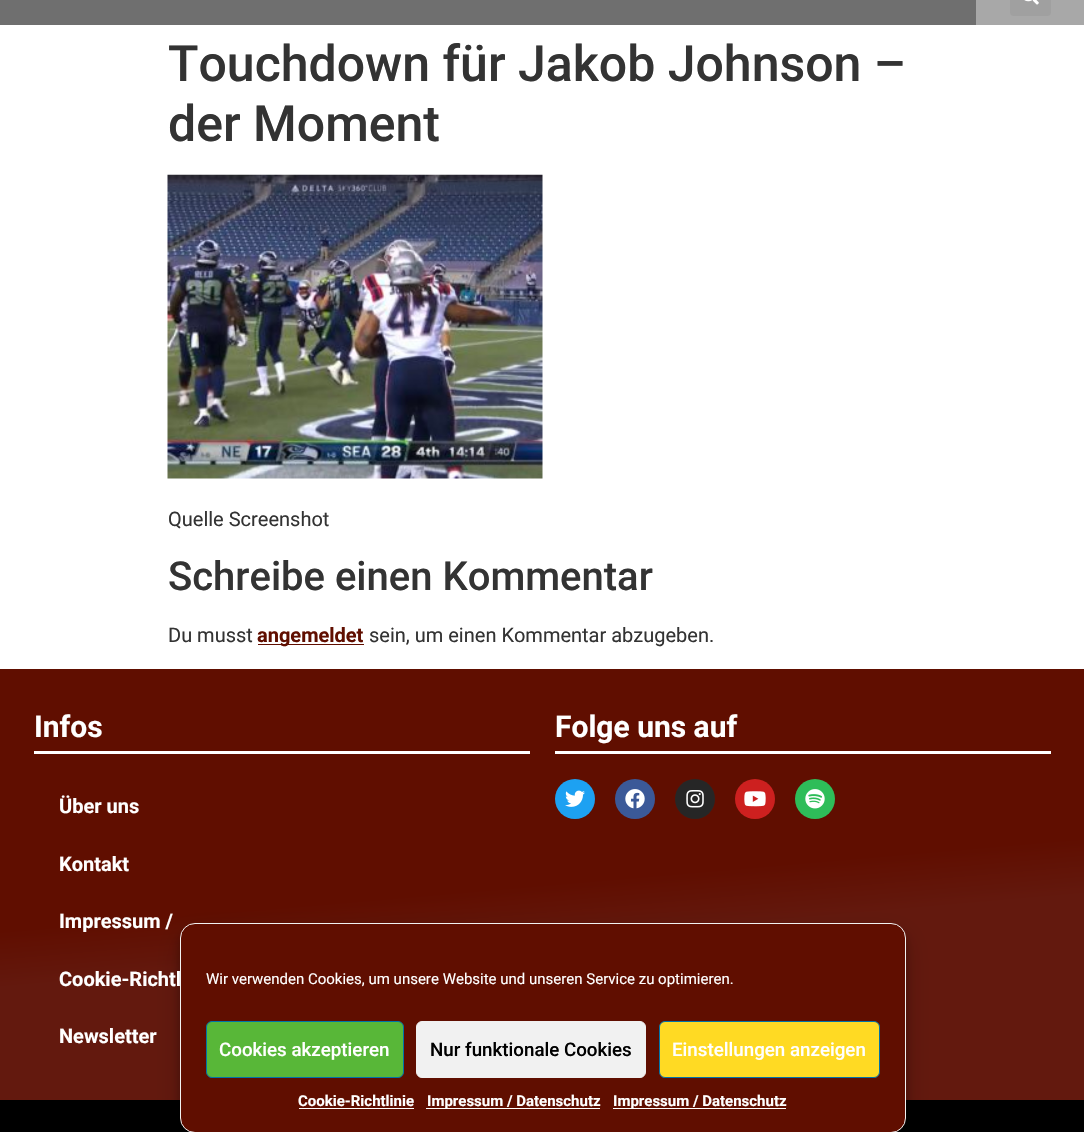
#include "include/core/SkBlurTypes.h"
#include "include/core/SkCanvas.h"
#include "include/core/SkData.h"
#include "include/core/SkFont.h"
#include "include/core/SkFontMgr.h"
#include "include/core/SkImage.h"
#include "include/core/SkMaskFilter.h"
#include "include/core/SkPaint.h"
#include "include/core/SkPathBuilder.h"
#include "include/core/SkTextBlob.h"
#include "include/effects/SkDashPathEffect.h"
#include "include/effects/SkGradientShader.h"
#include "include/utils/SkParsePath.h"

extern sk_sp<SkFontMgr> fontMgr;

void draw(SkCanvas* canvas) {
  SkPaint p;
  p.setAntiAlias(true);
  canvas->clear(SK_ColorWHITE);
  p.setColor(SkColorSetRGB(111, 111, 111));
  canvas->drawRect(SkRect::MakeLTRB(0, 0, 976, 25), p);
  p.setColor(SkColorSetRGB(168, 168, 168));
  canvas->drawRect(SkRect::MakeLTRB(976, 0, 1084, 25), p);
  p.setColor(SkColorSetRGB(160, 160, 160));
  canvas->drawRoundRect(SkRect::MakeLTRB(1010, -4, 1051, 16), 4, 4, p);
  canvas->drawImageRect(SkImages::DeferredFromEncodedData(SkData::MakeFromFileName("images/1.png")), SkRect::MakeLTRB(1024, 0, 1039, 5), SkSamplingOptions());
  canvas->drawImageRect(SkImages::DeferredFromEncodedData(SkData::MakeFromFileName("images/2.png")), SkRect::MakeLTRB(167, 174, 543, 479), SkSamplingOptions());
  p.setColor(SkColorSetRGB(96, 14, 0));
  canvas->drawRect(SkRect::MakeLTRB(258, 644, 364, 645), p);
  {
    const SkColor colors[] = {SkColorSetRGB(96, 14, 0), SkColorSetRGB(99, 25, 14)};
    const float stops[] = {0.5f, 0.61f};
    const SkPoint ends[] = {{520, 623}, {565, 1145}};
    p.setShader(SkGradientShader::MakeLinear(ends, colors, stops, 2, SkTileMode::kClamp));
    p.setAlpha(255);
  }
  canvas->drawRect(SkRect::MakeLTRB(0, 669, 1084, 1100), p);
  p.setShader(nullptr);
  p.setColor(SK_ColorWHITE);
  canvas->drawRect(SkRect::MakeLTRB(34, 751, 530, 754), p);
  canvas->drawRect(SkRect::MakeLTRB(555, 751, 1051, 754), p);
  p.setColor(SkColorSetRGB(29, 161, 242));
  canvas->drawCircle(575, 799, 20, p);
  canvas->drawImageRect(SkImages::DeferredFromEncodedData(SkData::MakeFromFileName("images/3.png")), SkRect::MakeLTRB(565, 790, 585, 807), SkSamplingOptions());
  p.setColor(SkColorSetRGB(59, 89, 152));
  canvas->drawCircle(635, 799, 20, p);
  canvas->drawImageRect(SkImages::DeferredFromEncodedData(SkData::MakeFromFileName("images/4.png")), SkRect::MakeLTRB(625, 789, 645, 809), SkSamplingOptions());
  p.setColor(SkColorSetRGB(38, 38, 38));
  canvas->drawCircle(695, 799, 20, p);
  canvas->drawImageRect(SkImages::DeferredFromEncodedData(SkData::MakeFromFileName("images/5.png")), SkRect::MakeLTRB(686, 790, 704, 808), SkSamplingOptions());
  p.setColor(SkColorSetRGB(205, 32, 31));
  canvas->drawCircle(755, 799, 20, p);
  canvas->drawImageRect(SkImages::DeferredFromEncodedData(SkData::MakeFromFileName("images/6.png")), SkRect::MakeLTRB(744, 791, 766, 807), SkSamplingOptions());
  p.setColor(SkColorSetRGB(46, 189, 89));
  canvas->drawCircle(815, 799, 20, p);
  canvas->drawImageRect(SkImages::DeferredFromEncodedData(SkData::MakeFromFileName("images/7.png")), SkRect::MakeLTRB(805, 789, 825, 809), SkSamplingOptions());
  p.setColor(SK_ColorBLACK);
  canvas->drawRect(SkRect::MakeLTRB(0, 1100, 1084, 1132), p);
  p.setColor(SkColorSetARGB(59, 0, 0, 0));
  p.setMaskFilter(SkMaskFilter::MakeBlur(kNormal_SkBlurStyle, 4));
  canvas->drawRoundRect(SkRect::MakeLTRB(180, 930, 906, 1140), 15, 15, p);
  p.setMaskFilter(nullptr);
  p.setColor(SkColorSetARGB(48, 0, 0, 0));
  p.setMaskFilter(SkMaskFilter::MakeBlur(kNormal_SkBlurStyle, 12.5f));
  canvas->drawRoundRect(SkRect::MakeLTRB(180, 935, 906, 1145), 15, 15, p);
  p.setMaskFilter(nullptr);
  SkFont font1(fontMgr->matchFamilyStyle("Roboto", SkFontStyle(500, SkFontStyle::kNormal_Width, SkFontStyle::kUpright_Slant)), 50);
  font1.setSubpixel(true);
  p.setColor(SkColorSetRGB(51, 51, 51));
  canvas->drawString("Touchdown für Jakob Johnson –", 168, 81, font1, p);
  canvas->drawString("der Moment", 168, 141, font1, p);
  SkFont font2(fontMgr->matchFamilyStyle("Roboto", SkFontStyle::Normal()), 20);
  font2.setSubpixel(true);
  canvas->drawString("Quelle Screenshot", 168, 526, font2, p);
  SkFont font3(fontMgr->matchFamilyStyle("Roboto", SkFontStyle(500, SkFontStyle::kNormal_Width, SkFontStyle::kUpright_Slant)), 40);
  font3.setSubpixel(true);
  canvas->drawString("Schreibe einen Kommentar", 168, 590, font3, p);
  canvas->drawString("Du musst", 168, 642, font2, p);
  SkFont font4(fontMgr->matchFamilyStyle("Roboto", SkFontStyle::Bold()), 20);
  font4.setSubpixel(true);
  p.setColor(SkColorSetRGB(96, 14, 0));
  canvas->drawString("angemeldet", 257, 642, font4, p);
  p.setColor(SkColorSetRGB(51, 51, 51));
  canvas->drawString("sein, um einen Kommentar abzugeben.", 369, 642, font2, p);
  SkFont font5(fontMgr->matchFamilyStyle("Roboto", SkFontStyle::Bold()), 30);
  font5.setSubpixel(true);
  p.setColor(SK_ColorWHITE);
  canvas->drawString("Infos", 34, 737, font5, p);
  canvas->drawString("Über uns", 59, 813, font4, p);
  canvas->drawString("Kontakt", 59, 871, font4, p);
  canvas->drawString("Impressum /", 59, 928, font4, p);
  canvas->drawString("Cookie-Richtl", 59, 986, font4, p);
  canvas->drawString("Newsletter", 59, 1043, font4, p);
  canvas->drawString("Folge uns auf", 555, 737, font5, p);
  p.setColor(SkColorSetRGB(96, 14, 0));
  canvas->drawRoundRect(SkRect::MakeLTRB(180.5f, 923.5f, 905.5f, 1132.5f), 14.5f, 14.5f, p);
  p.setStyle(SkPaint::kStroke_Style);
  p.setStrokeWidth(1);
  p.setColor(SkColorSetRGB(241, 241, 241));
  canvas->drawRoundRect(SkRect::MakeLTRB(180.5f, 923.5f, 905.5f, 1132.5f), 14.5f, 14.5f, p);
  SkFont font6(fontMgr->matchFamilyStyle("Roboto", SkFontStyle::Normal()), 15);
  font6.setSubpixel(true);
  p.setStyle(SkPaint::kFill_Style);
  p.setColor(SK_ColorWHITE);
  canvas->drawString("Wir verwenden Cookies, um unsere Website und unseren Service zu optimieren.", 206, 984, font6, p);
  p.setColor(SkColorSetRGB(88, 183, 56));
  canvas->drawRoundRect(SkRect::MakeLTRB(206.5f, 1021.5f, 403.5f, 1077.5f), 5.5f, 5.5f, p);
  p.setStyle(SkPaint::kStroke_Style);
  p.setColor(SkColorSetRGB(0, 115, 170));
  canvas->drawRoundRect(SkRect::MakeLTRB(206.5f, 1021.5f, 403.5f, 1077.5f), 5.5f, 5.5f, p);
  SkFont font7(fontMgr->matchFamilyStyle("Roboto", SkFontStyle(500, SkFontStyle::kNormal_Width, SkFontStyle::kUpright_Slant)), 18.75f);
  font7.setSubpixel(true);
  p.setStyle(SkPaint::kFill_Style);
  p.setColor(SK_ColorWHITE);
  canvas->drawString("Cookies akzeptieren", 219, 1056, font7, p);
  p.setColor(SkColorSetRGB(241, 241, 241));
  canvas->drawRoundRect(SkRect::MakeLTRB(416.5f, 1021.5f, 645.5f, 1077.5f), 5.5f, 5.5f, p);
  p.setStyle(SkPaint::kStroke_Style);
  canvas->drawRoundRect(SkRect::MakeLTRB(416.5f, 1021.5f, 645.5f, 1077.5f), 5.5f, 5.5f, p);
  p.setStyle(SkPaint::kFill_Style);
  p.setColor(SK_ColorBLACK);
  canvas->drawString("Nur funktionale Cookies", 430, 1056, font7, p);
  p.setColor(SkColorSetRGB(255, 218, 35));
  canvas->drawRoundRect(SkRect::MakeLTRB(659.5f, 1021.5f, 879.5f, 1077.5f), 5.5f, 5.5f, p);
  p.setStyle(SkPaint::kStroke_Style);
  p.setColor(SkColorSetRGB(0, 115, 170));
  canvas->drawRoundRect(SkRect::MakeLTRB(659.5f, 1021.5f, 879.5f, 1077.5f), 5.5f, 5.5f, p);
  p.setStyle(SkPaint::kFill_Style);
  p.setColor(SK_ColorWHITE);
  canvas->drawString("Einstellungen anzeigen", 672, 1056, font7, p);
  SkFont font8(fontMgr->matchFamilyStyle("Roboto", SkFontStyle::Bold()), 15);
  font8.setSubpixel(true);
  canvas->drawString("Cookie-Richtlinie", 298, 1106, font8, p);
  canvas->drawRect(SkRect::MakeLTRB(299, 1108, 414, 1109), p);
  canvas->drawRect(SkRect::MakeLTRB(426, 1108, 600, 1109), p);
  canvas->drawString("Impressum / Datenschutz", 427, 1106, font8, p);
  canvas->drawRect(SkRect::MakeLTRB(613, 1108, 786, 1109), p);
  canvas->drawString("Impressum / Datenschutz", 613, 1106, font8, p);
}
